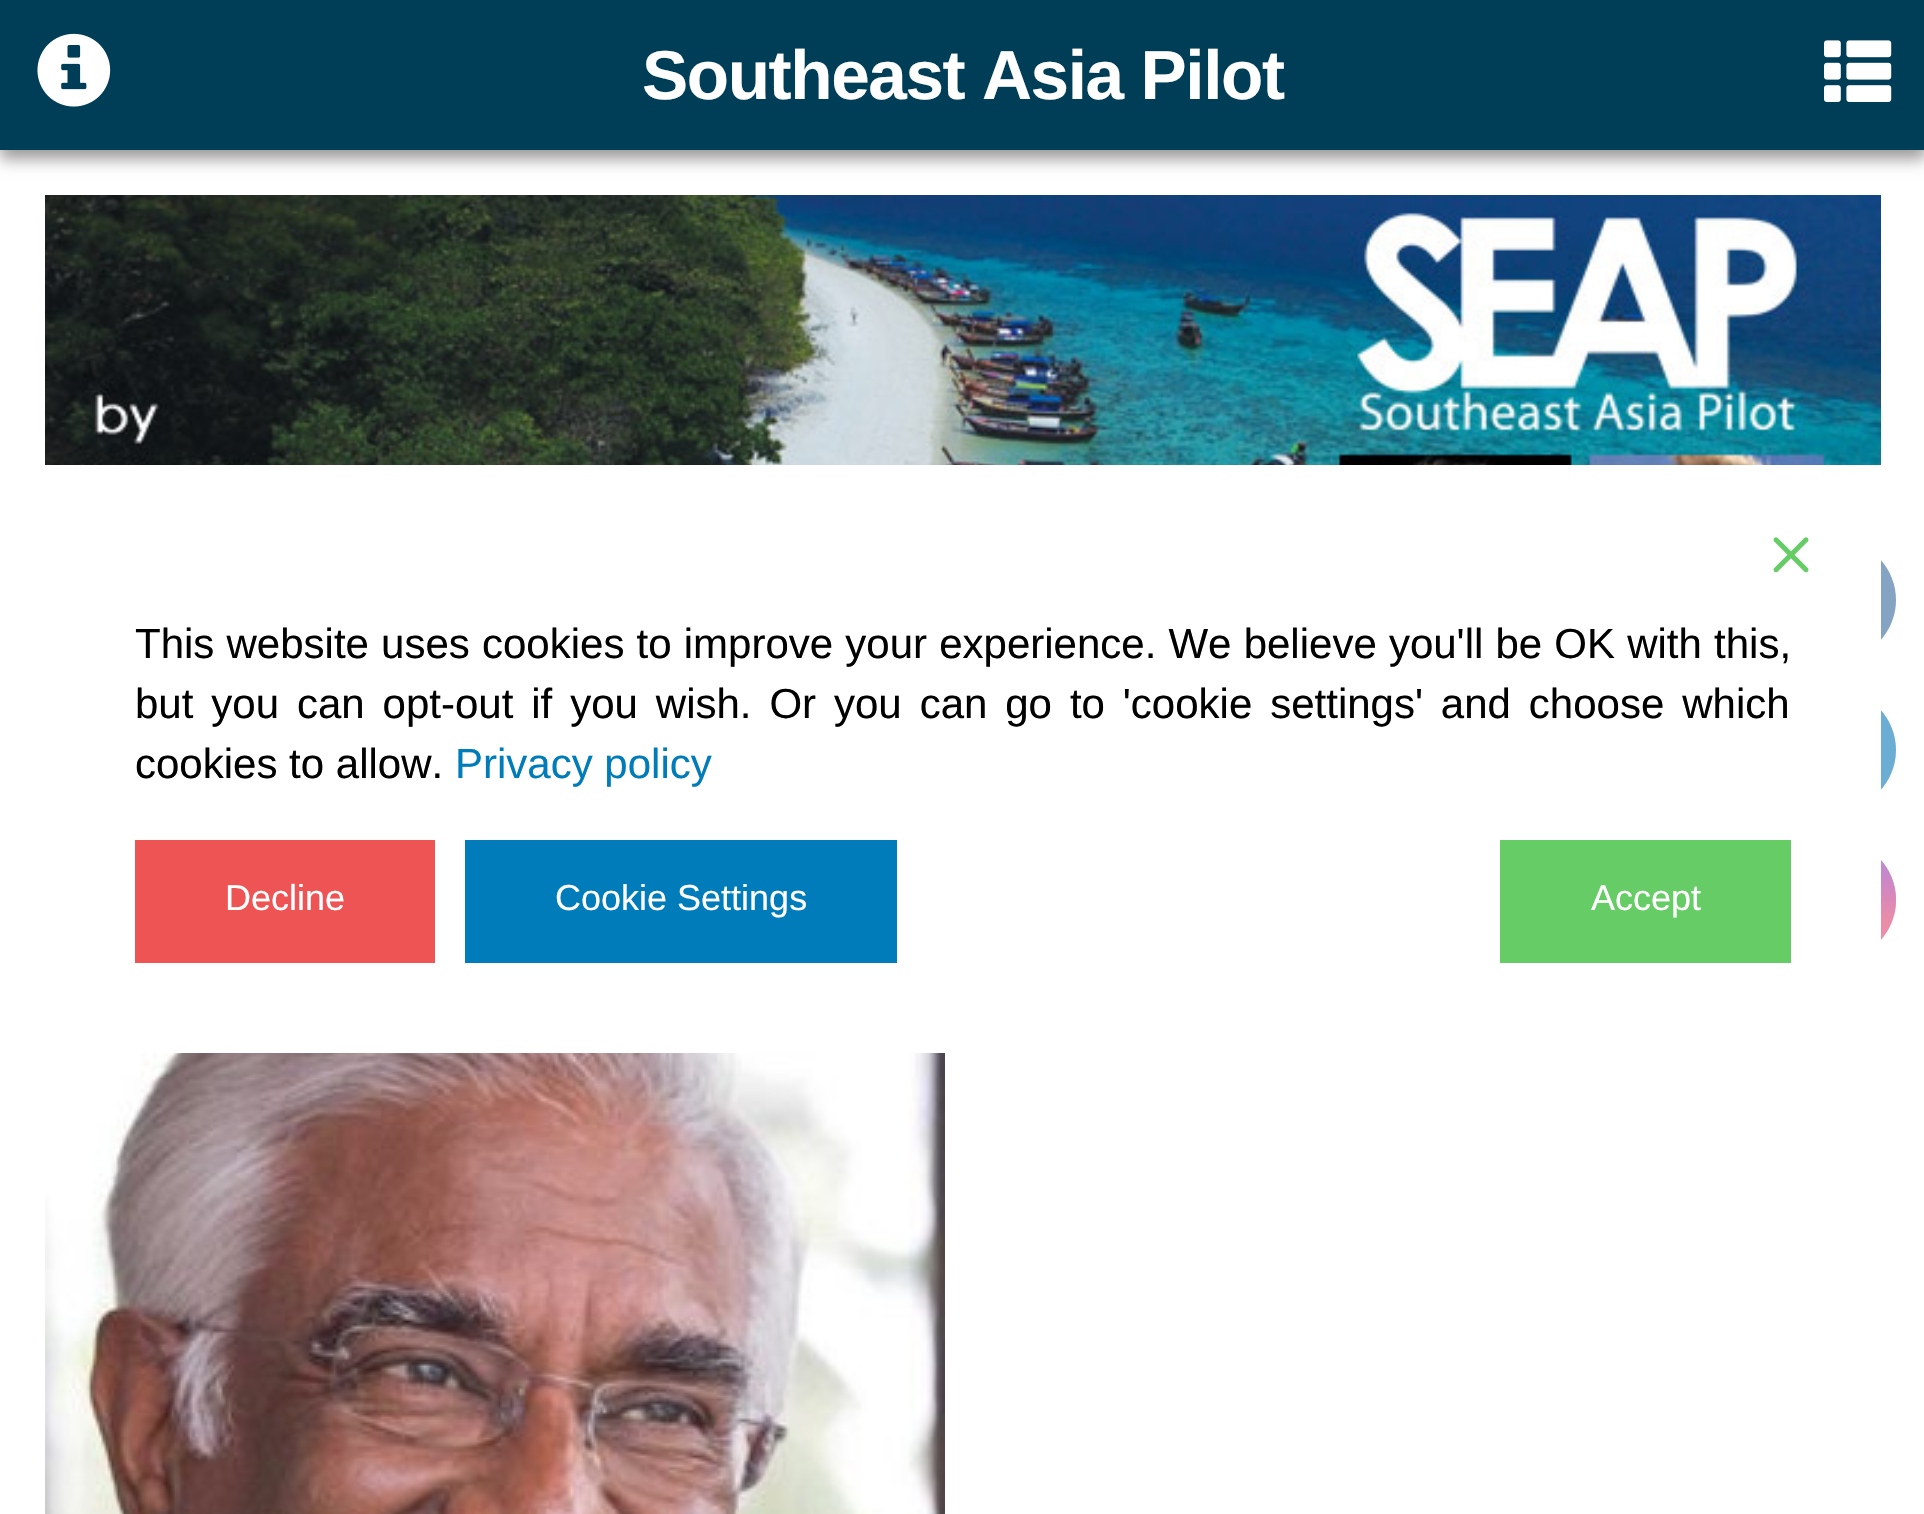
#include "include/core/SkBlurTypes.h"
#include "include/core/SkCanvas.h"
#include "include/core/SkData.h"
#include "include/core/SkFont.h"
#include "include/core/SkFontMgr.h"
#include "include/core/SkImage.h"
#include "include/core/SkMaskFilter.h"
#include "include/core/SkPaint.h"
#include "include/core/SkPathBuilder.h"
#include "include/core/SkTextBlob.h"
#include "include/effects/SkDashPathEffect.h"
#include "include/effects/SkGradientShader.h"
#include "include/utils/SkParsePath.h"

extern sk_sp<SkFontMgr> fontMgr;

void draw(SkCanvas* canvas) {
  SkPaint p;
  p.setAntiAlias(true);
  auto spacedText = [&](const char* s, float x, float y, const SkFont& font, const SkPaint& ink, float letter, float word) {
    std::vector<SkGlyphID> glyphs(font.countText(s, strlen(s), SkTextEncoding::kUTF8));
    std::vector<float> xs(glyphs.size());
    font.textToGlyphs(s, strlen(s), SkTextEncoding::kUTF8, glyphs);
    font.getXPos(glyphs, xs, x);
    float extra = 0;
    for (size_t i = 0; i < glyphs.size(); i++) {
      xs[i] += extra;
      extra += letter + word * (glyphs[i] == font.unicharToGlyph(' '));
    }
    canvas->drawTextBlob(SkTextBlob::MakeFromPosHGlyphs(glyphs, xs, y, font), 0, 0, ink);
  };
  canvas->clear(SK_ColorWHITE);
  p.setColor(SkColorSetARGB(102, 0, 0, 0));
  p.setMaskFilter(SkMaskFilter::MakeBlur(kNormal_SkBlurStyle, 7.5f));
  canvas->drawRect(SkRect::MakeLTRB(0, 9, 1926, 159), p);
  p.setMaskFilter(nullptr);
  p.setColor(SkColorSetRGB(0, 62, 87));
  canvas->drawRect(SkRect::MakeLTRB(0, 0, 1924, 150), p);
  canvas->drawImageRect(SkImages::DeferredFromEncodedData(SkData::MakeFromFileName("images/1.png")), SkRect::MakeLTRB(37, 33, 111, 107), SkSamplingOptions());
  canvas->drawImageRect(SkImages::DeferredFromEncodedData(SkData::MakeFromFileName("images/2.png")), SkRect::MakeLTRB(1824, 40, 1892, 102), SkSamplingOptions());
  canvas->drawImageRect(SkImages::DeferredFromEncodedData(SkData::MakeFromFileName("images/3.png")), SkRect::MakeLTRB(45, 195, 1881, 465), SkSamplingOptions());
  p.setColor(SkColorSetARGB(153, 51, 102, 153));
  canvas->drawCircle(1836, 600, 60, p);
  p.setColor(SkColorSetRGB(107, 173, 211));
  canvas->drawCircle(1836, 750, 60, p);
  {
    const SkColor colors[] = {SkColorSetRGB(163, 155, 223), SkColorSetRGB(215, 131, 188), SkColorSetRGB(238, 140, 159), SkColorSetRGB(250, 173, 136), SkColorSetRGB(254, 221, 167)};
    const float stops[] = {0, 0.3f, 0.5f, 0.7f, 1};
    const SkPoint ends[] = {{1836, 840}, {1836, 960}};
    p.setShader(SkGradientShader::MakeLinear(ends, colors, stops, 5, SkTileMode::kClamp));
    p.setAlpha(255);
  }
  canvas->drawCircle(1836, 900, 60, p);
  {
    const SkColor colors[] = {SkColorSetRGB(232, 131, 175), SkColorSetARGB(0, 232, 131, 175)};
    const float stops[] = {0, 1};
    p.setShader(SkGradientShader::MakeRadial({1896, 960}, 170, colors, stops, 2, SkTileMode::kClamp));
    p.setAlpha(255);
  }
  canvas->drawCircle(1836, 900, 60, p);
  {
    const SkColor colors[] = {SkColorSetRGB(184, 139, 218), SkColorSetARGB(0, 184, 139, 218)};
    const float stops[] = {0, 0.5f};
    SkMatrix m = SkMatrix::Translate(1848, 816).preScale(102, 204);
    p.setShader(SkGradientShader::MakeRadial({0, 0}, 1, colors, stops, 2, SkTileMode::kClamp, 0, &m));
    p.setAlpha(255);
  }
  canvas->drawCircle(1836, 900, 60, p);
  {
    const SkColor colors[] = {SkColorSetRGB(184, 139, 218), SkColorSetARGB(0, 184, 139, 218)};
    const float stops[] = {0, 0.5f};
    p.setShader(SkGradientShader::MakeRadial({1896, 840}, 170, colors, stops, 2, SkTileMode::kClamp));
    p.setAlpha(255);
  }
  canvas->drawCircle(1836, 900, 60, p);
  p.setShader(nullptr);
  p.setColor(SK_ColorWHITE);
  canvas->drawRect(SkRect::MakeLTRB(1776, 540, 1881, 960), p);
  canvas->drawImageRect(SkImages::DeferredFromEncodedData(SkData::MakeFromFileName("images/4.png")), SkRect::MakeLTRB(1773, 537, 1809, 573), SkSamplingOptions());
  p.setColor(SkColorSetRGB(239, 84, 84));
  canvas->drawRect(SkRect::MakeLTRB(135, 840, 435, 963), p);
  p.setColor(SkColorSetRGB(0, 124, 186));
  canvas->drawRect(SkRect::MakeLTRB(465, 840, 897, 963), p);
  p.setColor(SkColorSetRGB(102, 204, 102));
  canvas->drawRect(SkRect::MakeLTRB(1500, 840, 1791, 963), p);
  {
    const SkColor colors[] = {SkColorSetRGB(254, 220, 162), SkColorSetARGB(0, 254, 220, 162)};
    const float stops[] = {0, 0.5f};
    p.setShader(SkGradientShader::MakeRadial({1818, 948}, 133, colors, stops, 2, SkTileMode::kClamp));
    p.setAlpha(255);
  }
  canvas->drawRect(SkRect::MakeLTRB(1881, 934, 1882, 939), p);
  canvas->drawImageRect(SkImages::DeferredFromEncodedData(SkData::MakeFromFileName("images/5.png")), SkRect::MakeLTRB(45, 1053, 945, 1514), SkSamplingOptions());
  SkFont font1(fontMgr->matchFamilyStyle("Liberation Sans", SkFontStyle::Bold()), 69.25f);
  font1.setSubpixel(true);
  p.setShader(nullptr);
  p.setColor(SK_ColorWHITE);
  spacedText("Southeast Asia Pilot", 642, 99, font1, p, -1.4f, 0);
  SkFont font2(fontMgr->matchFamilyStyle("Liberation Sans", SkFontStyle::Normal()), 42);
  font2.setSubpixel(true);
  p.setColor(SK_ColorBLACK);
  spacedText("This website uses cookies to improve your experience. We believe you'll be OK with this,", 135, 658, font2, p, 0, 0.5f);
  spacedText("but you can opt-out if you wish. Or you can go to 'cookie settings' and choose which", 135, 718, font2, p, 0, 6.25f);
  canvas->drawString("cookies to allow.", 135, 778, font2, p);
  p.setColor(SkColorSetRGB(0, 124, 186));
  canvas->drawString("Privacy policy", 455, 778, font2, p);
  SkFont font3(fontMgr->matchFamilyStyle("Liberation Sans", SkFontStyle::Normal()), 36);
  font3.setSubpixel(true);
  p.setColor(SK_ColorWHITE);
  canvas->drawString("Decline", 225, 910, font3, p);
  canvas->drawString("Cookie Settings", 555, 910, font3, p);
  canvas->drawString("Accept", 1591, 910, font3, p);
}
